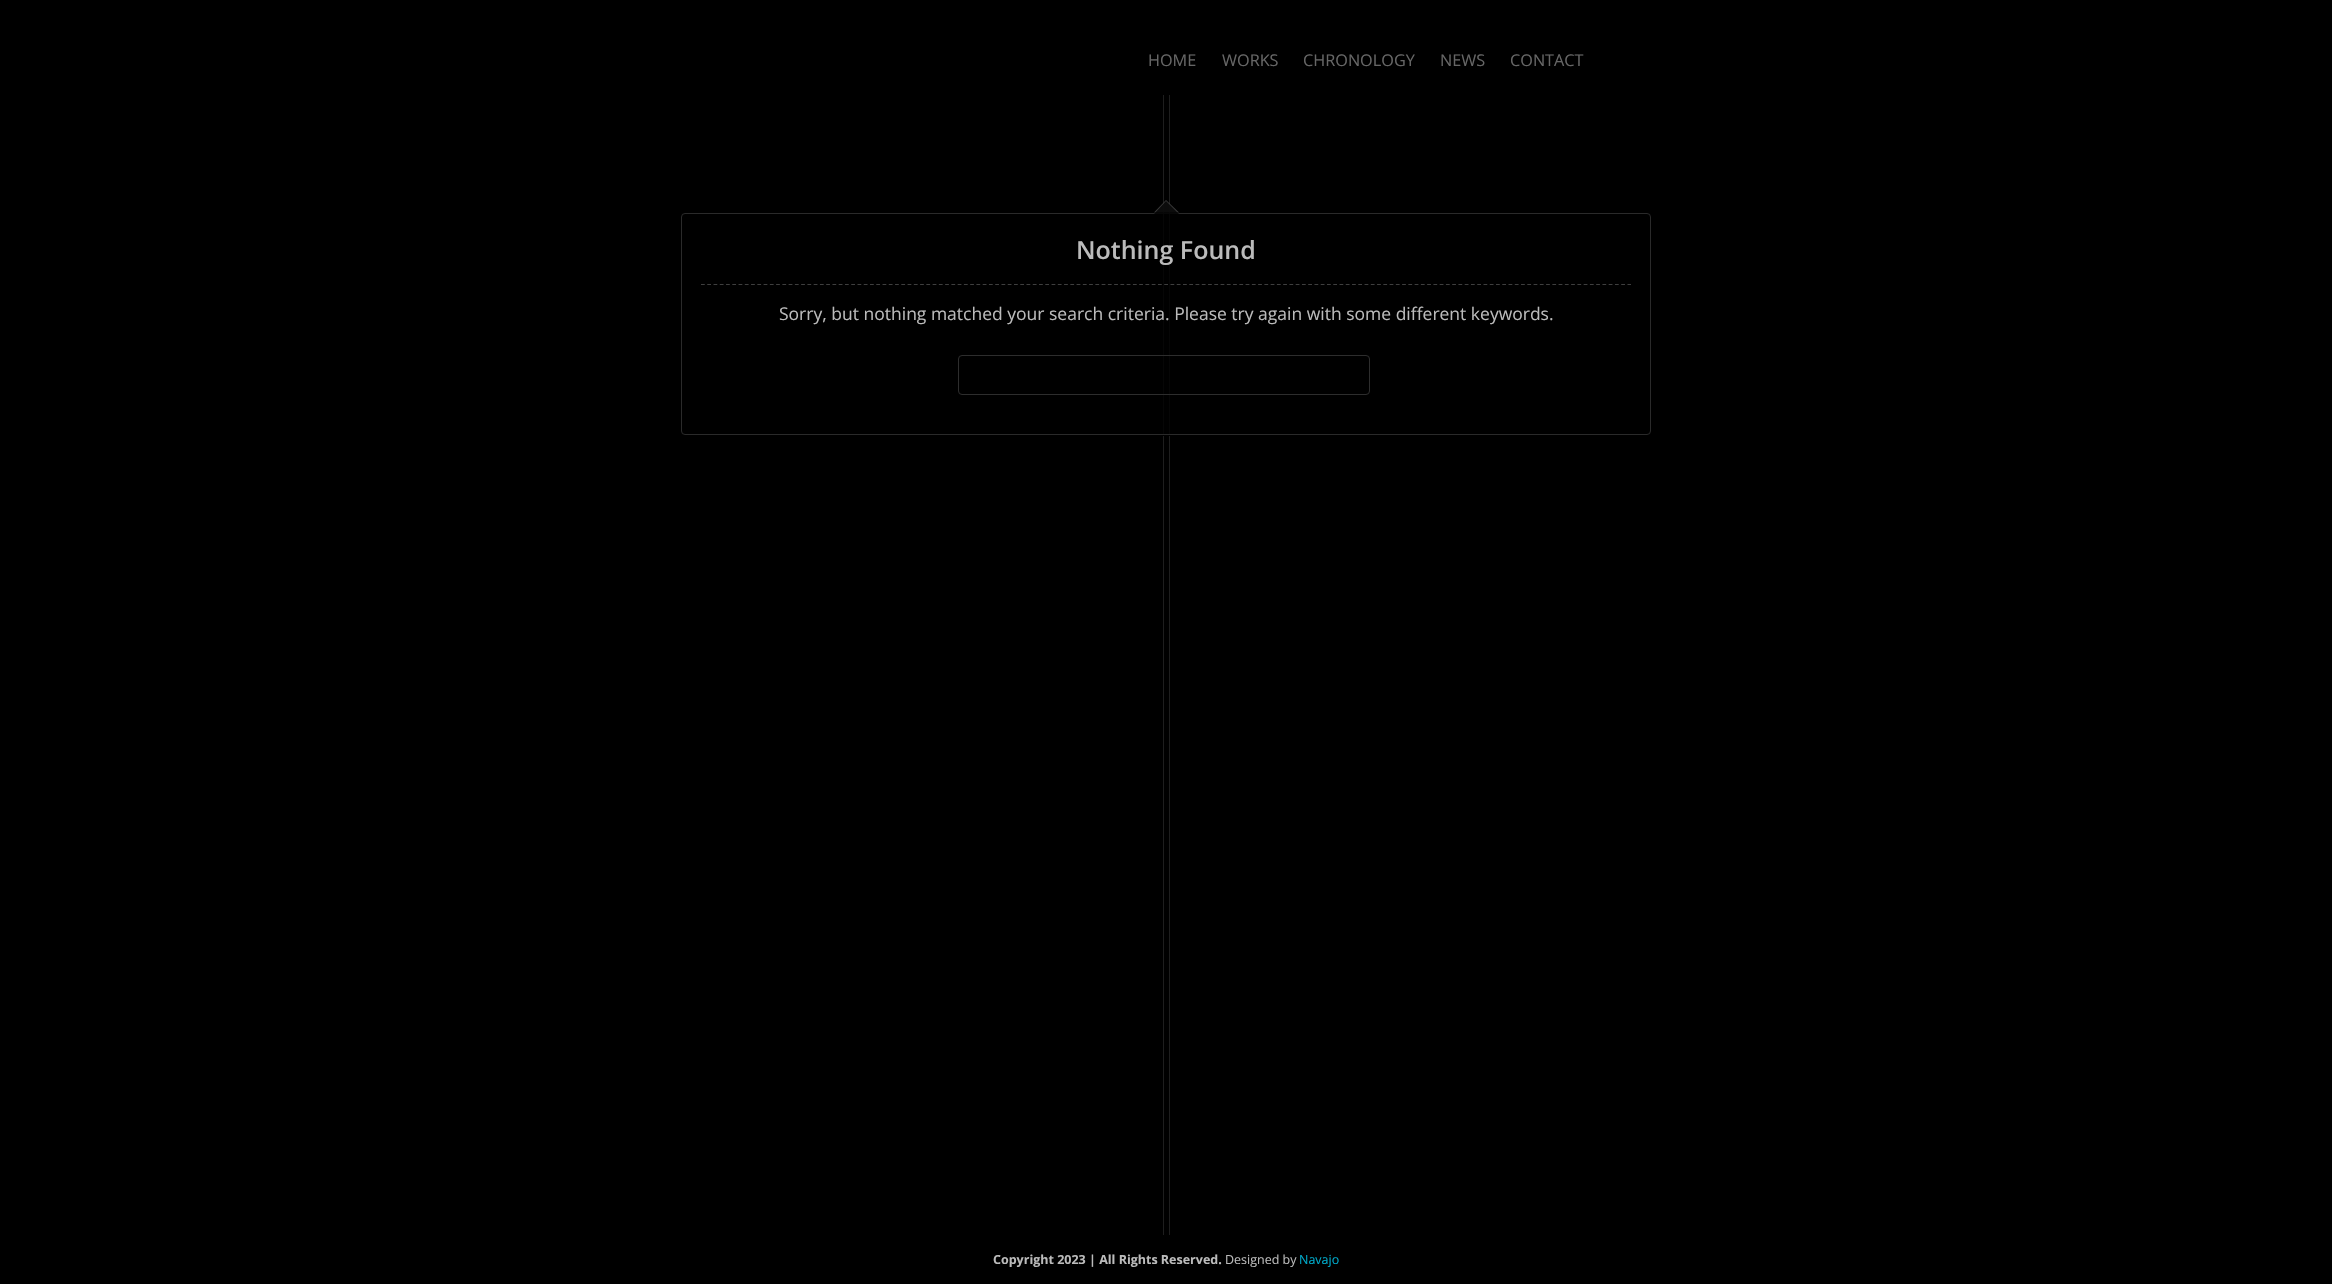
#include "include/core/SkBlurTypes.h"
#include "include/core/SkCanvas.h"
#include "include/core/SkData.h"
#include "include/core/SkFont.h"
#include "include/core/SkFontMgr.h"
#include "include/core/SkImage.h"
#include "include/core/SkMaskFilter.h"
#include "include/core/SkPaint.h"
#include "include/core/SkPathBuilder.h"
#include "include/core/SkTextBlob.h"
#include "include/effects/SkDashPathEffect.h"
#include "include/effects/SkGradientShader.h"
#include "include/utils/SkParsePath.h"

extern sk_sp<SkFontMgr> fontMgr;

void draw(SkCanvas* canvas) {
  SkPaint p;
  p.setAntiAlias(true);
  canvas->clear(SK_ColorBLACK);
  p.setStyle(SkPaint::kStroke_Style);
  p.setStrokeWidth(1);
  p.setColor(SkColorSetRGB(30, 30, 30));
  canvas->drawRect(SkRect::MakeLTRB(1163.5f, 86.5f, 1169.5f, 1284.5f), p);
  p.setColor(SK_ColorBLACK);
  canvas->drawRoundRect(SkRect::MakeLTRB(680.5f, 211.5f, 1652.5f, 435.5f), 3.5f, 3.5f, p);
  p.setStyle(SkPaint::kFill_Style);
  p.setColor(SkColorSetARGB(204, 73, 73, 73));
  canvas->drawPath(SkPathBuilder().moveTo(1179, 212.5f).lineTo(1154, 212.5f).lineTo(1166, 200).close().detach(), p);
  p.setColor(SkColorSetARGB(204, 0, 0, 0));
  canvas->drawRoundRect(SkRect::MakeLTRB(681.5f, 213.5f, 1650.5f, 434.5f), 3.5f, 3.5f, p);
  p.setStyle(SkPaint::kStroke_Style);
  p.setColor(SkColorSetRGB(42, 42, 42));
  canvas->drawRoundRect(SkRect::MakeLTRB(681.5f, 213.5f, 1650.5f, 434.5f), 3.5f, 3.5f, p);
  p.setStyle(SkPaint::kFill_Style);
  p.setColor(SkColorSetARGB(204, 0, 0, 0));
  canvas->drawPath(SkPathBuilder().moveTo(1179, 214).lineTo(1154, 214).lineTo(1166, 201).close().detach(), p);
  p.setStyle(SkPaint::kStroke_Style);
  p.setStrokeWidth(1.2f);
  p.setColor(SkColorSetRGB(63, 63, 63));
  p.setPathEffect(SkDashPathEffect::Make({{3.75f, 2.51f}}, 0));
  canvas->drawPath(SkPathBuilder().moveTo(701, 284.5f).lineTo(1631, 284.5f).detach(), p);
  p.setPathEffect(nullptr);
  p.setStrokeWidth(1);
  p.setColor(SkColorSetRGB(45, 45, 45));
  canvas->drawRoundRect(SkRect::MakeLTRB(958.5f, 355.5f, 1369.5f, 394.5f), 3.5f, 3.5f, p);
  p.setStyle(SkPaint::kFill_Style);
  p.setColor(SK_ColorBLACK);
  canvas->drawRect(SkRect::MakeLTRB(1163, 1235, 1170, 1284), p);
  canvas->drawRect(SkRect::MakeLTRB(1163, 86, 1170, 95), p);
  SkFont font1(fontMgr->matchFamilyStyle("Open Sans", SkFontStyle::Normal()), 16.25f);
  font1.setSubpixel(true);
  p.setColor(SkColorSetRGB(102, 102, 102));
  canvas->drawString("HOME", 1148, 66, font1, p);
  canvas->drawString("WORKS", 1222, 66, font1, p);
  canvas->drawString("CHRONOLOGY", 1303, 66, font1, p);
  canvas->drawString("NEWS", 1440, 66, font1, p);
  canvas->drawString("CONTACT", 1510, 66, font1, p);
  SkFont font2(fontMgr->matchFamilyStyle("Open Sans", SkFontStyle(600, SkFontStyle::kNormal_Width, SkFontStyle::kUpright_Slant)), 25);
  font2.setSubpixel(true);
  p.setColor(SkColorSetRGB(187, 187, 187));
  canvas->drawString("Nothing Found", 1076, 259, font2, p);
  SkFont font3(fontMgr->matchFamilyStyle("Open Sans", SkFontStyle::Normal()), 17.5f);
  font3.setSubpixel(true);
  canvas->drawString("Sorry, but nothing matched your search criteria. Please try again with some different keywords.", 779, 320, font3, p);
  SkFont font4(fontMgr->matchFamilyStyle("Open Sans", SkFontStyle::Bold()), 12.5f);
  font4.setSubpixel(true);
  canvas->drawString("Copyright 2023 | All Rights Reserved.", 993, 1264, font4, p);
  SkFont font5(fontMgr->matchFamilyStyle("Open Sans", SkFontStyle::Normal()), 12.5f);
  font5.setSubpixel(true);
  canvas->drawString("Designed by", 1225, 1264, font5, p);
  p.setColor(SkColorSetRGB(0, 168, 200));
  canvas->drawString("Navajo", 1299, 1264, font5, p);
}
